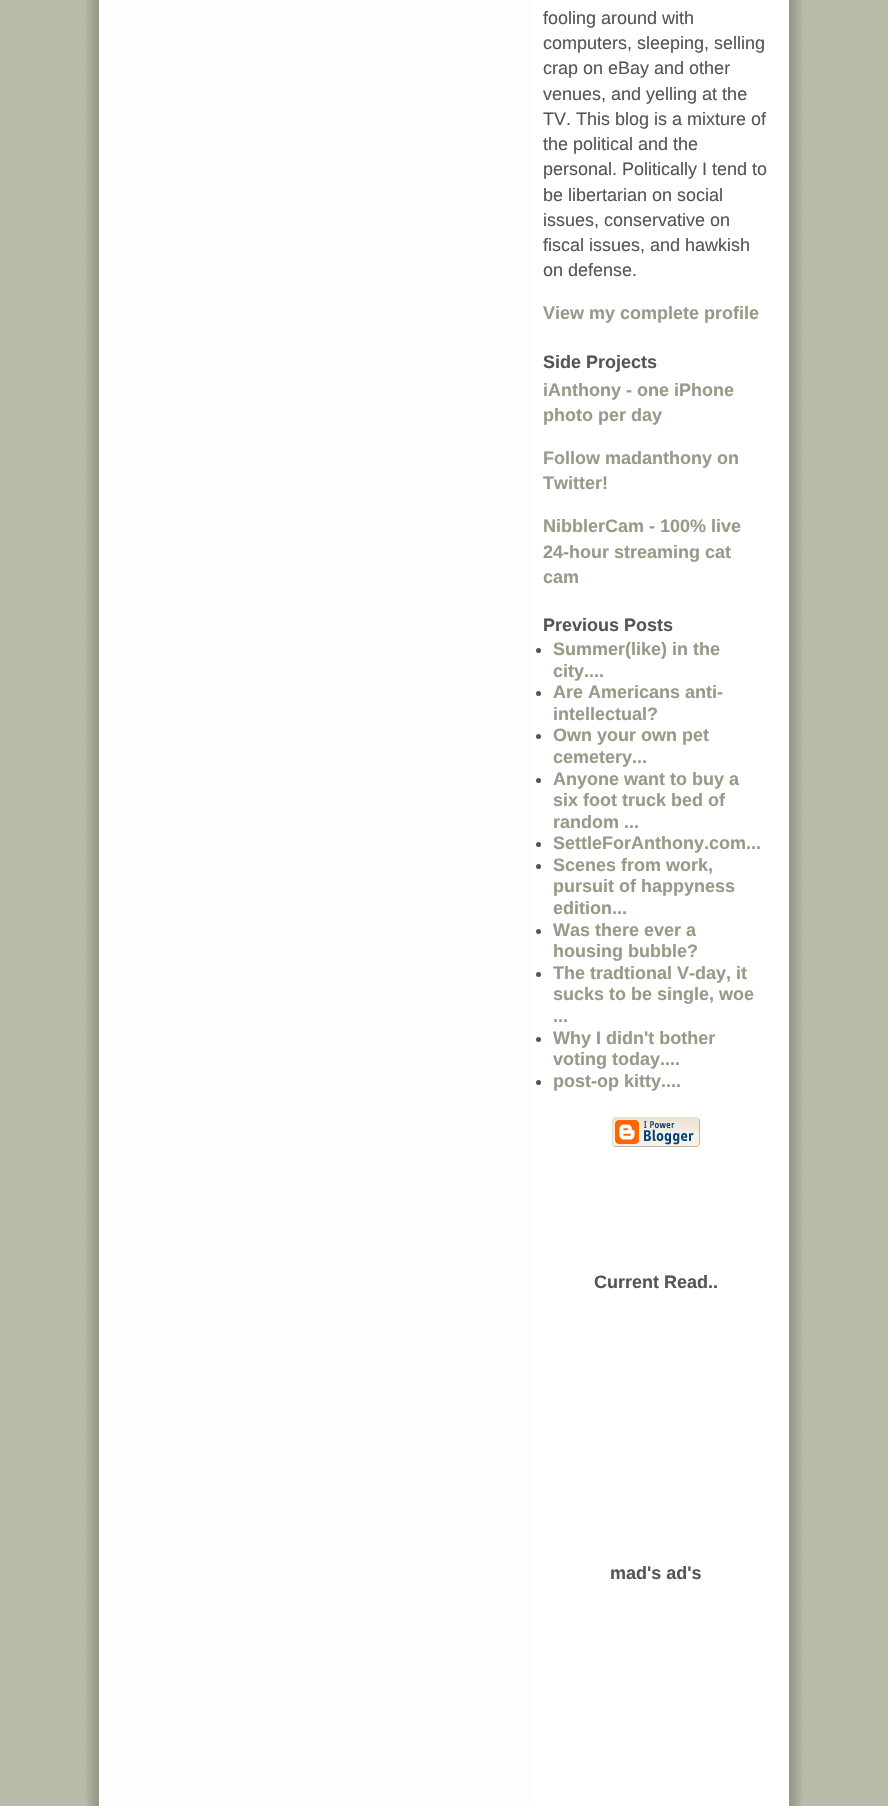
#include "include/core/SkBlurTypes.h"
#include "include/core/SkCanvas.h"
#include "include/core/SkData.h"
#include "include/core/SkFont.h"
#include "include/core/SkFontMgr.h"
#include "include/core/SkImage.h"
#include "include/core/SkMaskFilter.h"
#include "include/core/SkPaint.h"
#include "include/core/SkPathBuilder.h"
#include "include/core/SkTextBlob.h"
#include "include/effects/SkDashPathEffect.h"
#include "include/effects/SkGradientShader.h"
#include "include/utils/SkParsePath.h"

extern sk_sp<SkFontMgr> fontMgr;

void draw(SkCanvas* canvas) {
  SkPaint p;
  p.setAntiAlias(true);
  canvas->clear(SkColorSetRGB(187, 187, 170));
  canvas->drawImageRect(SkImages::DeferredFromEncodedData(SkData::MakeFromFileName("images/1.png")), SkRect::MakeLTRB(86, 0, 802, 1806), SkSamplingOptions());
  p.setColor(SkColorSetRGB(85, 85, 85));
  canvas->drawCircle(538.5f, 650.5f, 2.5f, p);
  canvas->drawCircle(538.5f, 693.5f, 2.5f, p);
  canvas->drawCircle(538.5f, 736.5f, 2.5f, p);
  canvas->drawCircle(538.5f, 780.5f, 2.5f, p);
  canvas->drawCircle(538.5f, 844.5f, 2.5f, p);
  canvas->drawCircle(538.5f, 866.5f, 2.5f, p);
  canvas->drawCircle(538.5f, 931.5f, 2.5f, p);
  canvas->drawCircle(538.5f, 974.5f, 2.5f, p);
  canvas->drawCircle(538.5f, 1039.5f, 2.5f, p);
  canvas->drawCircle(538.5f, 1082.5f, 2.5f, p);
  canvas->drawImageRect(SkImages::DeferredFromEncodedData(SkData::MakeFromFileName("images/2.png")), SkRect::MakeLTRB(612, 1117, 700, 1147), SkSamplingOptions());
  SkFont font1(fontMgr->matchFamilyStyle("Liberation Sans", SkFontStyle::Normal()), 18);
  font1.setSubpixel(true);
  canvas->drawString("fooling around with", 543, 24, font1, p);
  canvas->drawString("computers, sleeping, selling", 543, 49, font1, p);
  canvas->drawString("crap on eBay and other", 543, 74, font1, p);
  canvas->drawString("venues, and yelling at the", 543, 100, font1, p);
  canvas->drawString("TV. This blog is a mixture of", 543, 125, font1, p);
  canvas->drawString("the political and the", 543, 150, font1, p);
  canvas->drawString("personal. Politically I tend to", 543, 175, font1, p);
  canvas->drawString("be libertarian on social", 543, 201, font1, p);
  canvas->drawString("issues, conservative on", 543, 226, font1, p);
  canvas->drawString("fiscal issues, and hawkish", 543, 251, font1, p);
  canvas->drawString("on defense.", 543, 276, font1, p);
  SkFont font2(fontMgr->matchFamilyStyle("Liberation Sans", SkFontStyle::Bold()), 18);
  font2.setSubpixel(true);
  p.setColor(SkColorSetRGB(153, 153, 136));
  canvas->drawString("View my complete profile", 543, 319, font2, p);
  p.setColor(SkColorSetRGB(85, 85, 85));
  canvas->drawString("Side Projects", 543, 368, font2, p);
  p.setColor(SkColorSetRGB(153, 153, 136));
  canvas->drawString("iAnthony - one iPhone", 543, 396, font2, p);
  canvas->drawString("photo per day", 543, 421, font2, p);
  canvas->drawString("Follow madanthony on", 543, 464, font2, p);
  canvas->drawString("Twitter!", 543, 489, font2, p);
  canvas->drawString("NibblerCam - 100% live", 543, 532, font2, p);
  canvas->drawString("24-hour streaming cat", 543, 558, font2, p);
  canvas->drawString("cam", 543, 583, font2, p);
  p.setColor(SkColorSetRGB(85, 85, 85));
  canvas->drawString("Previous Posts", 543, 631, font2, p);
  p.setColor(SkColorSetRGB(153, 153, 136));
  canvas->drawString("Summer(like) in the", 553, 655, font2, p);
  canvas->drawString("city....", 553, 677, font2, p);
  canvas->drawString("Are Americans anti-", 553, 698, font2, p);
  canvas->drawString("intellectual?", 553, 720, font2, p);
  canvas->drawString("Own your own pet", 553, 741, font2, p);
  canvas->drawString("cemetery...", 553, 763, font2, p);
  canvas->drawString("Anyone want to buy a", 553, 785, font2, p);
  canvas->drawString("six foot truck bed of", 553, 806, font2, p);
  canvas->drawString("random ...", 553, 828, font2, p);
  canvas->drawString("SettleForAnthony.com...", 553, 849, font2, p);
  canvas->drawString("Scenes from work,", 553, 871, font2, p);
  canvas->drawString("pursuit of happyness", 553, 892, font2, p);
  canvas->drawString("edition...", 553, 914, font2, p);
  canvas->drawString("Was there ever a", 553, 936, font2, p);
  canvas->drawString("housing bubble?", 553, 957, font2, p);
  canvas->drawString("The tradtional V-day, it", 553, 979, font2, p);
  canvas->drawString("sucks to be single, woe", 553, 1000, font2, p);
  canvas->drawString("...", 553, 1022, font2, p);
  canvas->drawString("Why I didn't bother", 553, 1044, font2, p);
  canvas->drawString("voting today....", 553, 1065, font2, p);
  canvas->drawString("post-op kitty....", 553, 1087, font2, p);
  p.setColor(SkColorSetRGB(85, 85, 85));
  canvas->drawString("Current Read..", 594, 1288, font2, p);
  canvas->drawString("mad's ad's", 610, 1579, font2, p);
}
